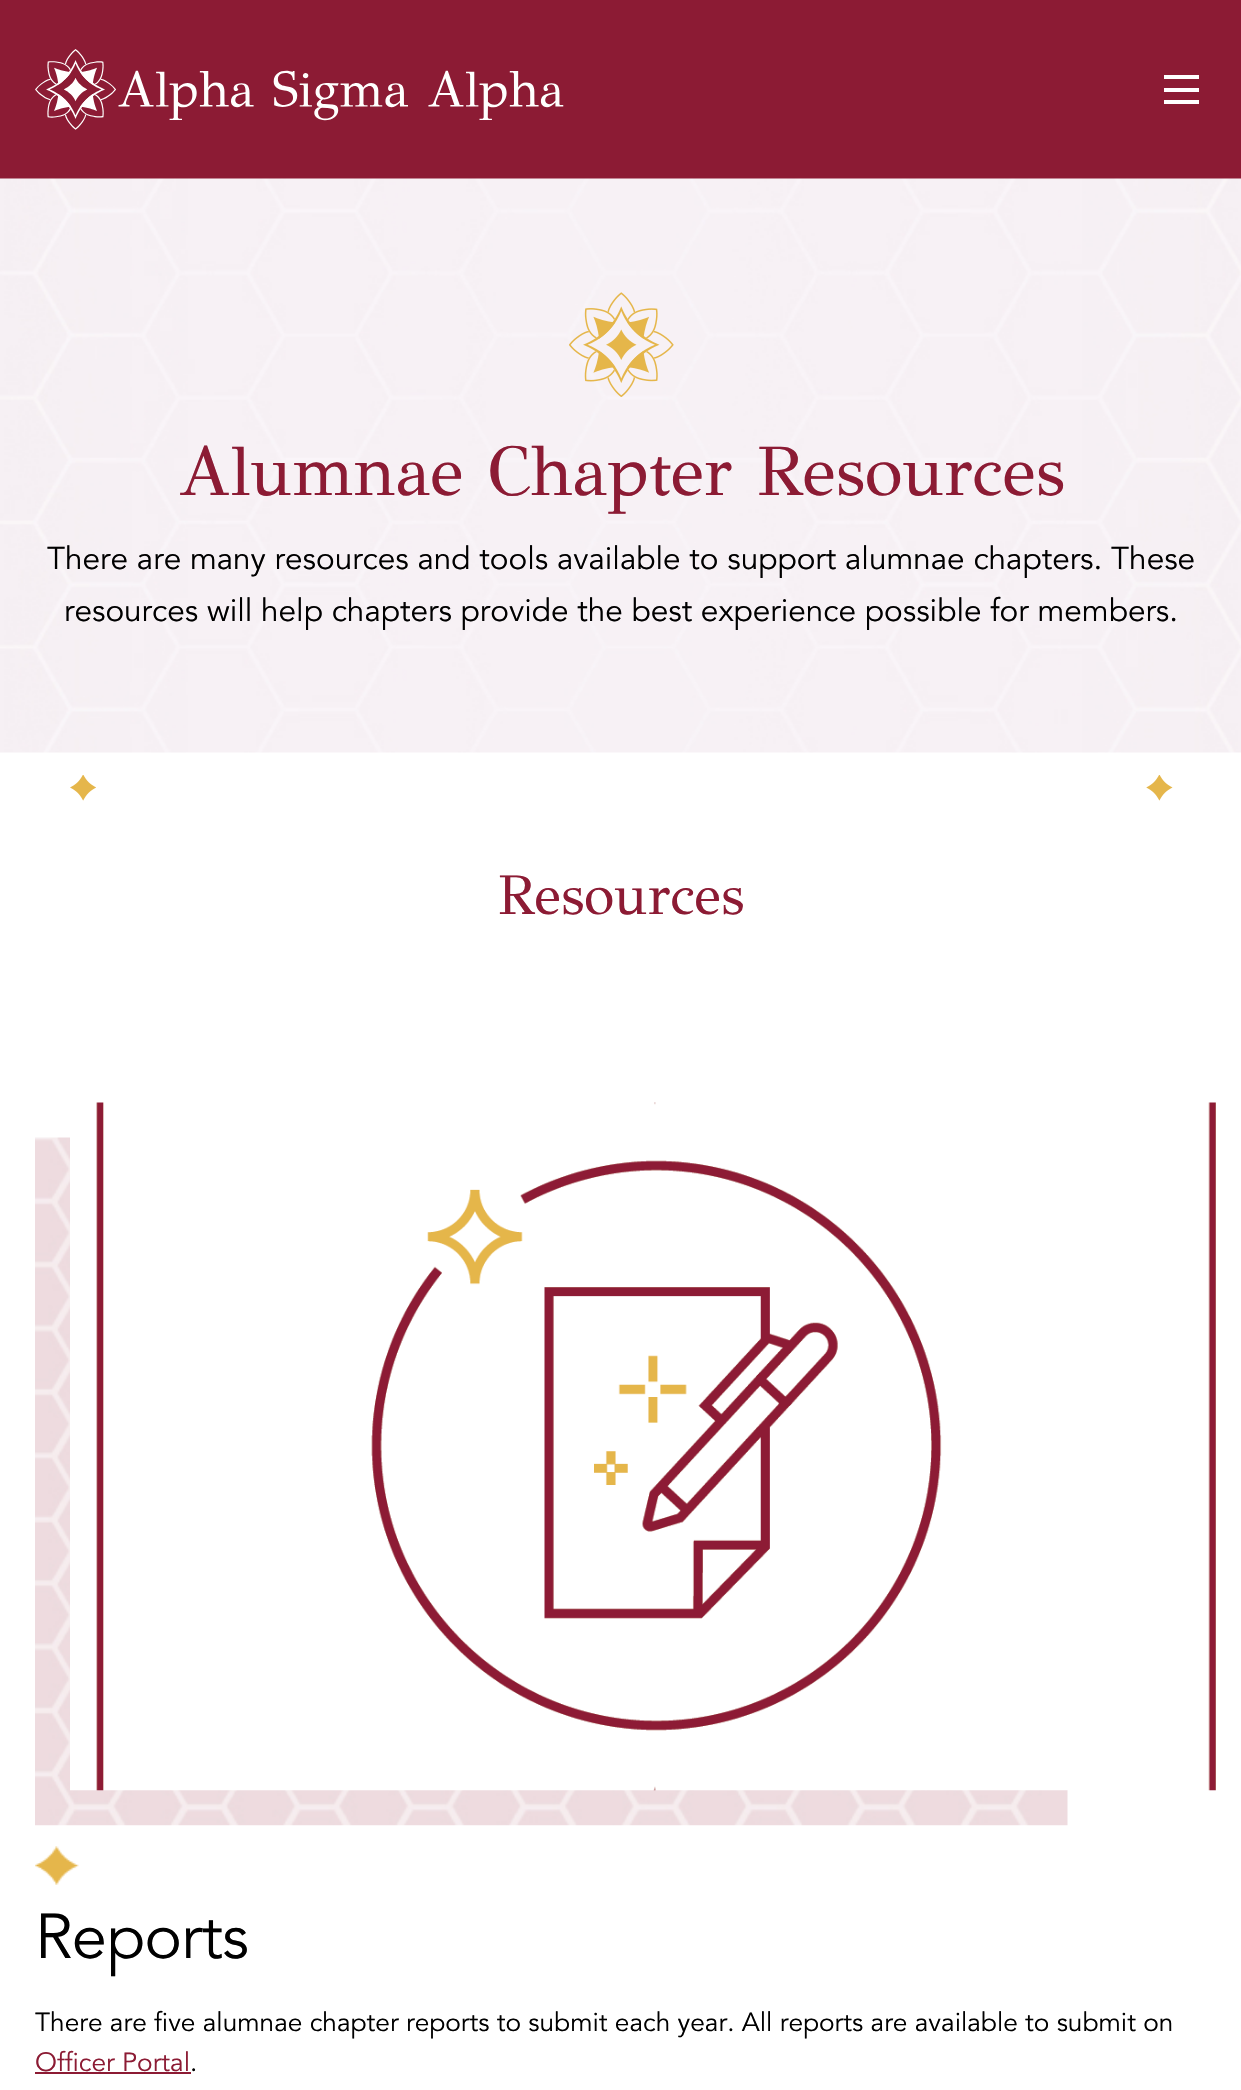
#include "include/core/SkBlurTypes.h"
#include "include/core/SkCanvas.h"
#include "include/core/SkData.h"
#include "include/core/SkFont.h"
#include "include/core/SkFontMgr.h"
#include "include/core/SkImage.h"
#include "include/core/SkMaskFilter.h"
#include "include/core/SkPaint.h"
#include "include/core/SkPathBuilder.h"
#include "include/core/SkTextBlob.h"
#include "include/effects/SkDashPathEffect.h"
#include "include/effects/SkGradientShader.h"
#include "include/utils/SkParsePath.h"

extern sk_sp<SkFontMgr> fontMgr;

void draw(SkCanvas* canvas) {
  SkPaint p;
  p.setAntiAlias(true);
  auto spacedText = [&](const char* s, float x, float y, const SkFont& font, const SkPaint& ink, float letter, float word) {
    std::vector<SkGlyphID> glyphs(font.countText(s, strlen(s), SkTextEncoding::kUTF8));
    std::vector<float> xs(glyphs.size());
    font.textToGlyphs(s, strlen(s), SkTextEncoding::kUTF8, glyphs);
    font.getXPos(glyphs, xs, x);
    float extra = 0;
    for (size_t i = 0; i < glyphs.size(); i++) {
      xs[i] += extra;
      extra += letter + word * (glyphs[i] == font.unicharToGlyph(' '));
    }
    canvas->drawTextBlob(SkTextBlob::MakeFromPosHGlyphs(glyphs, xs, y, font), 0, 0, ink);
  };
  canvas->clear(SK_ColorWHITE);
  p.setColor(SkColorSetRGB(140, 27, 52));
  canvas->drawRect(SkRect::MakeLTRB(0, 0, 1241, 179), p);
  canvas->drawImageRect(SkImages::DeferredFromEncodedData(SkData::MakeFromFileName("images/1.png")), SkRect::MakeLTRB(35, 49, 564, 130), SkSamplingOptions());
  p.setColor(SK_ColorWHITE);
  canvas->drawRect(SkRect::MakeLTRB(1164, 75, 1199, 79), p);
  canvas->drawRect(SkRect::MakeLTRB(1164, 88, 1199, 92), p);
  canvas->drawRect(SkRect::MakeLTRB(1164, 100, 1199, 104), p);
  canvas->drawImageRect(SkImages::DeferredFromEncodedData(SkData::MakeFromFileName("images/2.png")), SkRect::MakeLTRB(0, 178, 1241, 753), SkSamplingOptions());
  canvas->drawImageRect(SkImages::DeferredFromEncodedData(SkData::MakeFromFileName("images/3.png")), SkRect::MakeLTRB(569, 292, 674, 397), SkSamplingOptions());
  canvas->drawImageRect(SkImages::DeferredFromEncodedData(SkData::MakeFromFileName("images/4.png")), SkRect::MakeLTRB(70, 775, 96, 801), SkSamplingOptions());
  canvas->drawImageRect(SkImages::DeferredFromEncodedData(SkData::MakeFromFileName("images/5.png")), SkRect::MakeLTRB(1146, 775, 1173, 801), SkSamplingOptions());
  canvas->drawImageRect(SkImages::DeferredFromEncodedData(SkData::MakeFromFileName("images/7.png")), SkRect::MakeLTRB(35, 1137, 1068, 1826), SkSamplingOptions());
  canvas->drawImageRect(SkImages::DeferredFromEncodedData(SkData::MakeFromFileName("images/6.png")), SkRect::MakeLTRB(70, 1102, 1216, 1791), SkSamplingOptions());
  canvas->drawImageRect(SkImages::DeferredFromEncodedData(SkData::MakeFromFileName("images/8.png")), SkRect::MakeLTRB(35, 1846, 79, 1885), SkSamplingOptions());
  p.setColor(SkColorSetRGB(140, 27, 52));
  canvas->drawRect(SkRect::MakeLTRB(35, 2072, 191, 2074), p);
  SkFont font1(fontMgr->matchFamilyStyle("GFS Didot", SkFontStyle::Normal()), 70);
  font1.setSubpixel(true);
  canvas->drawString("Alumnae Chapter Resources", 178, 495, font1, p);
  SkFont font2(fontMgr->matchFamilyStyle("Avenir", SkFontStyle::Normal()), 31.5f);
  font2.setSubpixel(true);
  p.setColor(SK_ColorBLACK);
  canvas->drawString("There are many resources and tools available to support alumnae chapters. These", 47, 569, font2, p);
  canvas->drawString("resources will help chapters provide the best experience possible for members.", 64, 621, font2, p);
  SkFont font3(fontMgr->matchFamilyStyle("GFS Didot", SkFontStyle::Normal()), 56);
  font3.setSubpixel(true);
  p.setColor(SkColorSetRGB(140, 27, 52));
  canvas->drawString("Resources", 498, 914, font3, p);
  SkFont font4(fontMgr->matchFamilyStyle("Avenir", SkFontStyle::Normal()), 63);
  font4.setSubpixel(true);
  p.setColor(SK_ColorBLACK);
  spacedText("Reports", 35, 1958, font4, p, -0.5f, 0);
  SkFont font5(fontMgr->matchFamilyStyle("Avenir", SkFontStyle::Normal()), 26.25f);
  font5.setSubpixel(true);
  canvas->drawString("There are five alumnae chapter reports to submit each year. All reports are available to submit on", 35, 2031, font5, p);
  p.setColor(SkColorSetRGB(140, 27, 52));
  canvas->drawString("Officer Portal", 35, 2071, font5, p);
  p.setColor(SK_ColorBLACK);
  canvas->drawString(".", 190, 2071, font5, p);
}
